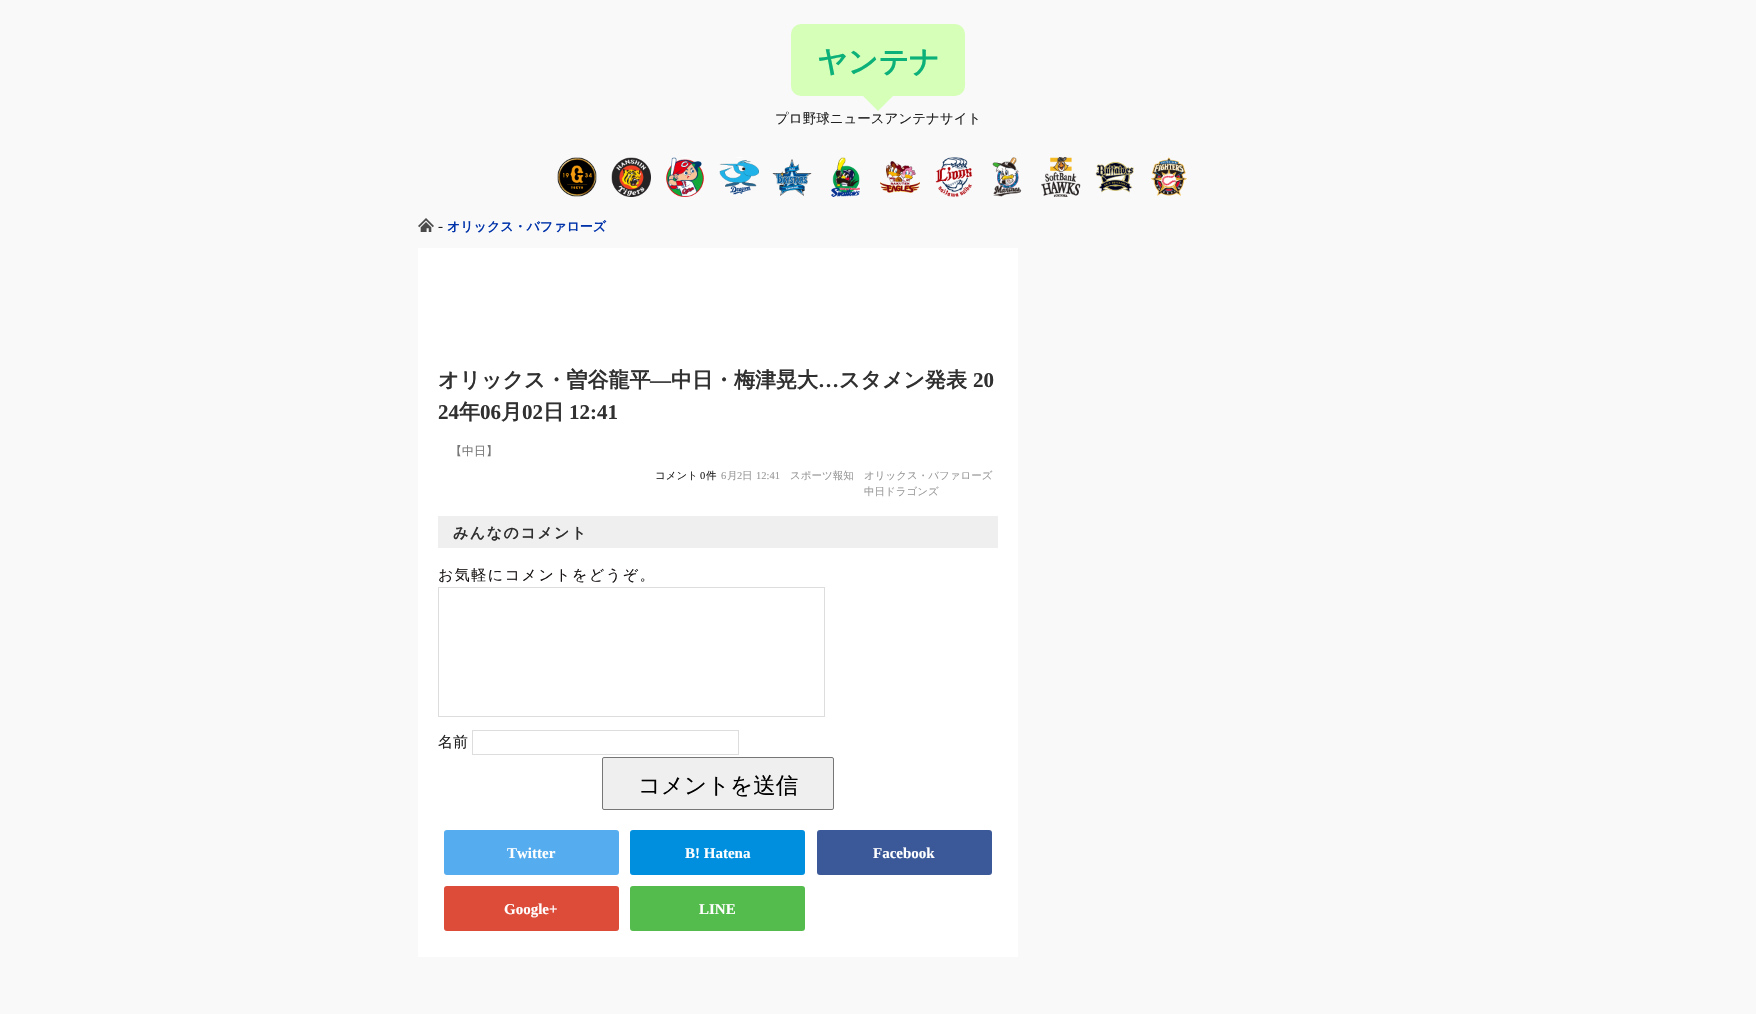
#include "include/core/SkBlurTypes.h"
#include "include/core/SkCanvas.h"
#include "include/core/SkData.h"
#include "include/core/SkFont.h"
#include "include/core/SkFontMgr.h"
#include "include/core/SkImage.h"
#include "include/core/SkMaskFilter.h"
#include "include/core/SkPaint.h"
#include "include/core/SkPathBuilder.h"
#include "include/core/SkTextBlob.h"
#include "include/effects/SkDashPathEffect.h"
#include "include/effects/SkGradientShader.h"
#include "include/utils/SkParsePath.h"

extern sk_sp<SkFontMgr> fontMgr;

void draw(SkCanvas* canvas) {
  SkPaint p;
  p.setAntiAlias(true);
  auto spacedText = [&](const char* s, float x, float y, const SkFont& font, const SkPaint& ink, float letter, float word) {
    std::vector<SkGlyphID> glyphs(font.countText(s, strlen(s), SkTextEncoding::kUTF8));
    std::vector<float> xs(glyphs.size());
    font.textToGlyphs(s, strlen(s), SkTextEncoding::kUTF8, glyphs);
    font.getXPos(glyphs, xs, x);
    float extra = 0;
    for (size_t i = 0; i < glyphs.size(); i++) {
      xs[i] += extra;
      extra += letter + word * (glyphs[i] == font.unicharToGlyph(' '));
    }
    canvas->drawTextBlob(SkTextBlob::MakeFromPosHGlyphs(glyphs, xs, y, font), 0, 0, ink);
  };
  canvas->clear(SkColorSetRGB(249, 249, 249));
  p.setColor(SkColorSetRGB(214, 255, 184));
  canvas->drawRoundRect(SkRect::MakeLTRB(791, 24, 965, 96), 10, 10, p);
  canvas->drawPath(SkPathBuilder().moveTo(863, 96).lineTo(893, 96).lineTo(878, 111).close().detach(), p);
  canvas->drawImageRect(SkImages::DeferredFromEncodedData(SkData::MakeFromFileName("images/1.png")), SkRect::MakeLTRB(557, 157, 597, 197), SkSamplingOptions());
  canvas->drawImageRect(SkImages::DeferredFromEncodedData(SkData::MakeFromFileName("images/2.png")), SkRect::MakeLTRB(611, 157, 651, 197), SkSamplingOptions());
  canvas->drawImageRect(SkImages::DeferredFromEncodedData(SkData::MakeFromFileName("images/3.png")), SkRect::MakeLTRB(666, 157, 704, 197), SkSamplingOptions());
  canvas->drawImageRect(SkImages::DeferredFromEncodedData(SkData::MakeFromFileName("images/4.png")), SkRect::MakeLTRB(719, 157, 759, 195), SkSamplingOptions());
  canvas->drawImageRect(SkImages::DeferredFromEncodedData(SkData::MakeFromFileName("images/5.png")), SkRect::MakeLTRB(772, 159, 812, 196), SkSamplingOptions());
  canvas->drawImageRect(SkImages::DeferredFromEncodedData(SkData::MakeFromFileName("images/6.png")), SkRect::MakeLTRB(831, 157, 861, 197), SkSamplingOptions());
  canvas->drawImageRect(SkImages::DeferredFromEncodedData(SkData::MakeFromFileName("images/7.png")), SkRect::MakeLTRB(880, 161, 920, 193), SkSamplingOptions());
  canvas->drawImageRect(SkImages::DeferredFromEncodedData(SkData::MakeFromFileName("images/8.png")), SkRect::MakeLTRB(934, 157, 973, 197), SkSamplingOptions());
  canvas->drawImageRect(SkImages::DeferredFromEncodedData(SkData::MakeFromFileName("images/9.png")), SkRect::MakeLTRB(992, 157, 1022, 197), SkSamplingOptions());
  canvas->drawImageRect(SkImages::DeferredFromEncodedData(SkData::MakeFromFileName("images/10.png")), SkRect::MakeLTRB(1041, 157, 1081, 197), SkSamplingOptions());
  canvas->drawImageRect(SkImages::DeferredFromEncodedData(SkData::MakeFromFileName("images/11.png")), SkRect::MakeLTRB(1095, 161, 1134, 193), SkSamplingOptions());
  canvas->drawImageRect(SkImages::DeferredFromEncodedData(SkData::MakeFromFileName("images/12.png")), SkRect::MakeLTRB(1151, 157, 1187, 196), SkSamplingOptions());
  canvas->drawImageRect(SkImages::DeferredFromEncodedData(SkData::MakeFromFileName("images/13.png")), SkRect::MakeLTRB(418, 218, 434, 232), SkSamplingOptions());
  p.setColor(SK_ColorWHITE);
  canvas->drawRect(SkRect::MakeLTRB(418, 248, 1018, 957), p);
  p.setColor(SkColorSetRGB(239, 239, 239));
  canvas->drawRect(SkRect::MakeLTRB(438, 516, 998, 548), p);
  p.setStyle(SkPaint::kStroke_Style);
  p.setStrokeWidth(1);
  p.setColor(SkColorSetRGB(221, 221, 221));
  canvas->drawRect(SkRect::MakeLTRB(438.5f, 587.5f, 824.5f, 716.5f), p);
  canvas->drawRect(SkRect::MakeLTRB(472.5f, 730.5f, 738.5f, 754.5f), p);
  p.setStyle(SkPaint::kFill_Style);
  p.setColor(SkColorSetRGB(239, 239, 239));
  canvas->drawRoundRect(SkRect::MakeLTRB(602.5f, 757.5f, 833.5f, 809.5f), 1.5f, 1.5f, p);
  p.setStyle(SkPaint::kStroke_Style);
  p.setColor(SkColorSetRGB(118, 118, 118));
  canvas->drawRoundRect(SkRect::MakeLTRB(602.5f, 757.5f, 833.5f, 809.5f), 1.5f, 1.5f, p);
  p.setStyle(SkPaint::kFill_Style);
  p.setColor(SkColorSetRGB(85, 172, 238));
  canvas->drawRoundRect(SkRect::MakeLTRB(444, 830, 619, 875), 3, 3, p);
  p.setColor(SkColorSetRGB(0, 143, 222));
  canvas->drawRoundRect(SkRect::MakeLTRB(630, 830, 805, 875), 3, 3, p);
  p.setColor(SkColorSetRGB(59, 89, 152));
  canvas->drawRoundRect(SkRect::MakeLTRB(817, 830, 992, 875), 3, 3, p);
  p.setColor(SkColorSetRGB(221, 75, 57));
  canvas->drawRoundRect(SkRect::MakeLTRB(444, 886, 619, 931), 3, 3, p);
  p.setColor(SkColorSetRGB(84, 188, 77));
  canvas->drawRoundRect(SkRect::MakeLTRB(630, 886, 805, 931), 3, 3, p);
  SkFont font1(fontMgr->matchFamilyStyle("WenQuanYi Zen Hei", SkFontStyle::Bold()), 30);
  font1.setSubpixel(true);
  p.setColor(SkColorSetRGB(12, 177, 122));
  canvas->drawString("ヤンテナ", 817, 72, font1, p);
  SkFont font2(fontMgr->matchFamilyStyle("WenQuanYi Zen Hei", SkFontStyle(500, SkFontStyle::kNormal_Width, SkFontStyle::kUpright_Slant)), 13.5f);
  font2.setSubpixel(true);
  p.setColor(SkColorSetRGB(34, 34, 34));
  canvas->drawString("プロ野球ニュースアンテナサイト", 775, 123, font2, p);
  SkFont font3(fontMgr->matchFamilyStyle("Liberation Serif", SkFontStyle::Normal()), 15);
  font3.setSubpixel(true);
  canvas->drawString("-", 438, 231, font3, p);
  SkFont font4(fontMgr->matchFamilyStyle("WenQuanYi Zen Hei", SkFontStyle::Bold()), 13);
  font4.setSubpixel(true);
  p.setColor(SkColorSetRGB(0, 51, 170));
  canvas->drawString("オリックス・バファローズ", 447, 231, font4, p);
  SkFont font5(fontMgr->matchFamilyStyle("WenQuanYi Zen Hei", SkFontStyle::Bold()), 21);
  font5.setSubpixel(true);
  p.setColor(SkColorSetRGB(48, 48, 48));
  canvas->drawString("オリックス・曽谷龍平", 438, 387, font5, p);
  SkFont font6(fontMgr->matchFamilyStyle("Liberation Serif", SkFontStyle::Bold()), 21);
  font6.setSubpixel(true);
  canvas->drawString("―", 650, 387, font6, p);
  canvas->drawString("中日・梅津晃大", 671, 387, font5, p);
  canvas->drawString("スタメン発表", 839, 387, font5, p);
  canvas->drawString("20", 973, 387, font6, p);
  canvas->drawString("…", 818, 387, font6, p);
  canvas->drawString("24", 438, 419, font6, p);
  canvas->drawString("年", 459, 419, font5, p);
  canvas->drawString("06", 480, 419, font6, p);
  canvas->drawString("月", 501, 419, font5, p);
  canvas->drawString("02", 522, 419, font6, p);
  canvas->drawString("日", 543, 419, font5, p);
  canvas->drawString("12:41", 569, 419, font6, p);
  SkFont font7(fontMgr->matchFamilyStyle("WenQuanYi Zen Hei", SkFontStyle(500, SkFontStyle::kNormal_Width, SkFontStyle::kUpright_Slant)), 12);
  font7.setSubpixel(true);
  p.setColor(SkColorSetRGB(119, 119, 119));
  canvas->drawString("【中日】", 450, 455, font7, p);
  SkFont font8(fontMgr->matchFamilyStyle("WenQuanYi Zen Hei", SkFontStyle(500, SkFontStyle::kNormal_Width, SkFontStyle::kUpright_Slant)), 10.5f);
  font8.setSubpixel(true);
  p.setColor(SkColorSetRGB(34, 34, 34));
  canvas->drawString("コメント", 655, 479, font8, p);
  SkFont font9(fontMgr->matchFamilyStyle("Liberation Serif", SkFontStyle::Normal()), 10.5f);
  font9.setSubpixel(true);
  canvas->drawString("0", 700, 479, font9, p);
  canvas->drawString("件", 706, 479, font8, p);
  p.setColor(SkColorSetRGB(153, 153, 153));
  canvas->drawString("6", 721, 479, font9, p);
  canvas->drawString("月", 727, 479, font8, p);
  canvas->drawString("2", 737, 479, font9, p);
  canvas->drawString("日", 742, 479, font8, p);
  canvas->drawString("12:41", 756, 479, font9, p);
  canvas->drawString("スポーツ報知", 790, 479, font8, p);
  canvas->drawString("オリックス・バファローズ", 864, 479, font8, p);
  canvas->drawString("中日ドラゴンズ", 864, 495, font8, p);
  SkFont font10(fontMgr->matchFamilyStyle("WenQuanYi Zen Hei", SkFontStyle::Bold()), 15);
  font10.setSubpixel(true);
  p.setColor(SkColorSetRGB(48, 48, 48));
  spacedText("みんなのコメント", 453, 538, font10, p, 1.5f, 0);
  SkFont font11(fontMgr->matchFamilyStyle("WenQuanYi Zen Hei", SkFontStyle(500, SkFontStyle::kNormal_Width, SkFontStyle::kUpright_Slant)), 15);
  font11.setSubpixel(true);
  p.setColor(SkColorSetRGB(25, 20, 20));
  spacedText("お気軽にコメントをどうぞ。", 438, 580, font11, p, 1.5f, 0);
  p.setColor(SkColorSetRGB(34, 34, 34));
  canvas->drawString("名前", 438, 747, font11, p);
  SkFont font12(fontMgr->matchFamilyStyle("WenQuanYi Zen Hei", SkFontStyle(500, SkFontStyle::kNormal_Width, SkFontStyle::kUpright_Slant)), 22.5f);
  font12.setSubpixel(true);
  p.setColor(SK_ColorBLACK);
  canvas->drawString("コメントを送信", 638, 793, font12, p);
  SkFont font13(fontMgr->matchFamilyStyle("Liberation Serif", SkFontStyle::Bold()), 15);
  font13.setSubpixel(true);
  p.setColor(SK_ColorWHITE);
  canvas->drawString("Twitter", 507, 858, font13, p);
  canvas->drawString("B! Hatena", 685, 858, font13, p);
  canvas->drawString("Facebook", 873, 858, font13, p);
  canvas->drawString("Google+", 504, 914, font13, p);
  canvas->drawString("LINE", 699, 914, font13, p);
}
